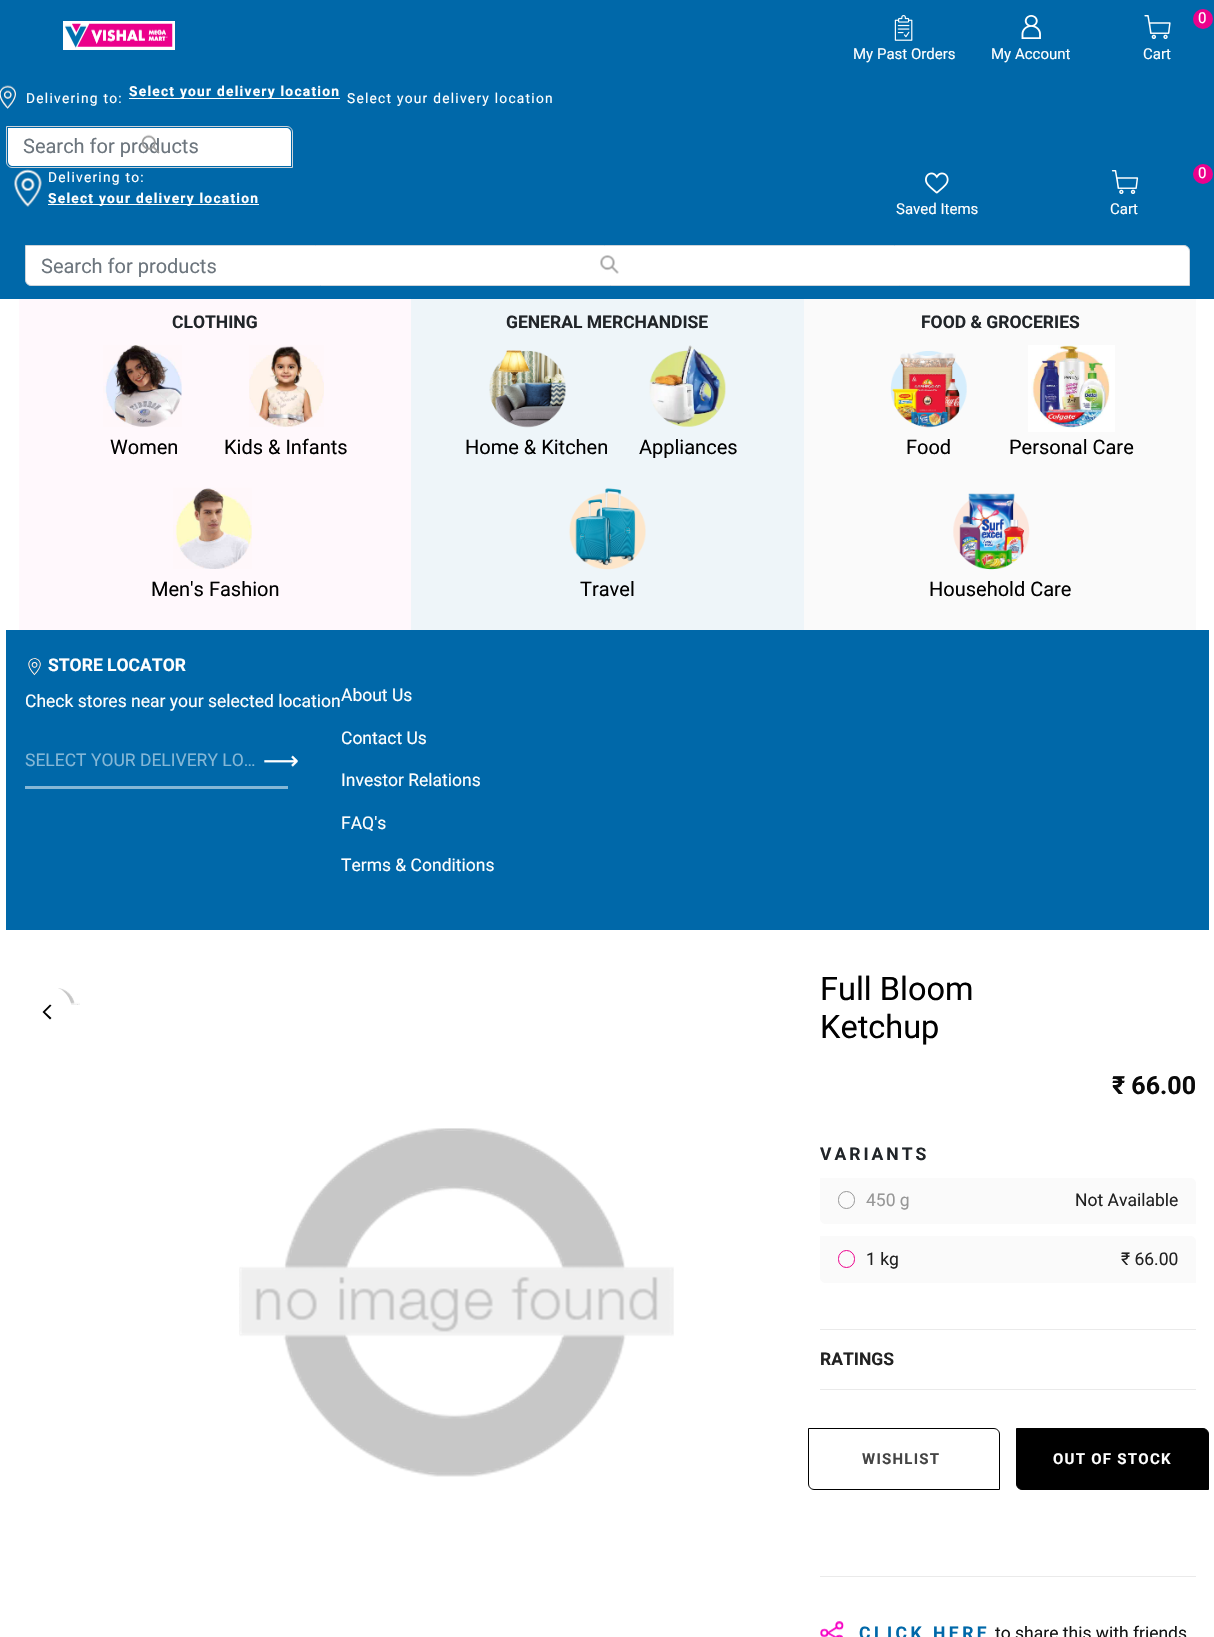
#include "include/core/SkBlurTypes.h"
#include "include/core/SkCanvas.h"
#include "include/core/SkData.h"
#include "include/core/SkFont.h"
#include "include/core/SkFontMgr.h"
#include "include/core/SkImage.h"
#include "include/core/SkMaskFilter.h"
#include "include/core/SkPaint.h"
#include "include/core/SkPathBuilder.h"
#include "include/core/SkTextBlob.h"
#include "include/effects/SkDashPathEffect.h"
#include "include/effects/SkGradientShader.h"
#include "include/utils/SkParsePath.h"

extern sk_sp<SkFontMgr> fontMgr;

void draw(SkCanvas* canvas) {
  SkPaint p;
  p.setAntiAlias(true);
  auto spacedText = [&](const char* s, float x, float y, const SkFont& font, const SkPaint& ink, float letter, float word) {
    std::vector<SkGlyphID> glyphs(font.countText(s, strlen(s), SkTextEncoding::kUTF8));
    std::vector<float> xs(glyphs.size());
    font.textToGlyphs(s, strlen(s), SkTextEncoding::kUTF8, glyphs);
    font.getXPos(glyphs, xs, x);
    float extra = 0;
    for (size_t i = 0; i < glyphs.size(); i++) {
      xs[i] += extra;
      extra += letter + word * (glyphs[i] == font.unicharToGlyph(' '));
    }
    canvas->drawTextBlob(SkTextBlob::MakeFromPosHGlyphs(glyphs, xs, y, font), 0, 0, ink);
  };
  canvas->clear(SK_ColorWHITE);
  p.setColor(SkColorSetRGB(0, 104, 169));
  canvas->drawRect(SkRect::MakeLTRB(0, 0, 1214, 299), p);
  p.setColor(SK_ColorWHITE);
  canvas->drawRect(SkRect::MakeLTRB(63, 21, 175, 50), p);
  canvas->drawImageRect(SkImages::DeferredFromEncodedData(SkData::MakeFromFileName("images/1.png")), SkRect::MakeLTRB(65, 23, 173, 48), SkSamplingOptions());
  canvas->drawImageRect(SkImages::DeferredFromEncodedData(SkData::MakeFromFileName("images/2.png")), SkRect::MakeLTRB(894, 15, 913, 41), SkSamplingOptions());
  canvas->drawImageRect(SkImages::DeferredFromEncodedData(SkData::MakeFromFileName("images/3.png")), SkRect::MakeLTRB(1021, 15, 1041, 39), SkSamplingOptions());
  canvas->drawImageRect(SkImages::DeferredFromEncodedData(SkData::MakeFromFileName("images/4.png")), SkRect::MakeLTRB(1144, 15, 1171, 39), SkSamplingOptions());
  p.setColor(SkColorSetRGB(236, 0, 140));
  canvas->drawCircle(1203, 19, 10, p);
  canvas->drawImageRect(SkImages::DeferredFromEncodedData(SkData::MakeFromFileName("images/5.png")), SkRect::MakeLTRB(0, 85, 16, 109), SkSamplingOptions());
  p.setColor(SK_ColorWHITE);
  canvas->drawRect(SkRect::MakeLTRB(129, 98, 340, 99), p);
  canvas->drawPath(SkPathBuilder().moveTo(8, 128).lineTo(286, 128).cubicTo(289, 128, 291, 130, 291, 133).lineTo(291, 166).lineTo(13, 166).cubicTo(10, 166, 8, 164, 8, 161).close().detach(), p);
  p.setStyle(SkPaint::kStroke_Style);
  p.setStrokeWidth(1);
  p.setColor(SkColorSetRGB(206, 212, 218));
  canvas->drawPath(SkPathBuilder().moveTo(6.5f, 126.5f).lineTo(287, 126.5f).cubicTo(290, 126.5f, 292.5f, 129, 292.5f, 132).lineTo(292.5f, 167.5f).lineTo(12, 167.5f).cubicTo(9, 167.5f, 6.5f, 165, 6.5f, 162).close().detach(), p);
  canvas->drawImageRect(SkImages::DeferredFromEncodedData(SkData::MakeFromFileName("images/7.png")), SkRect::MakeLTRB(14, 169, 42, 207), SkSamplingOptions());
  p.setStyle(SkPaint::kFill_Style);
  p.setColor(SK_ColorWHITE);
  canvas->drawRect(SkRect::MakeLTRB(48, 204, 259, 205), p);
  canvas->drawImageRect(SkImages::DeferredFromEncodedData(SkData::MakeFromFileName("images/8.png")), SkRect::MakeLTRB(925, 172, 949, 194), SkSamplingOptions());
  canvas->drawImageRect(SkImages::DeferredFromEncodedData(SkData::MakeFromFileName("images/9.png")), SkRect::MakeLTRB(1111, 170, 1139, 194), SkSamplingOptions());
  p.setColor(SkColorSetRGB(236, 0, 140));
  canvas->drawCircle(1203, 174, 10, p);
  p.setColor(SK_ColorWHITE);
  canvas->drawPath(SkPathBuilder().moveTo(25.5f, 245.5f).lineTo(1184, 245.5f).cubicTo(1187, 245.5f, 1189.5f, 248, 1189.5f, 251).lineTo(1189.5f, 285.5f).lineTo(31, 285.5f).cubicTo(28, 285.5f, 25.5f, 283, 25.5f, 280).close().detach(), p);
  p.setStyle(SkPaint::kStroke_Style);
  p.setColor(SkColorSetRGB(206, 212, 218));
  canvas->drawPath(SkPathBuilder().moveTo(25.5f, 245.5f).lineTo(1184, 245.5f).cubicTo(1187, 245.5f, 1189.5f, 248, 1189.5f, 251).lineTo(1189.5f, 285.5f).lineTo(31, 285.5f).cubicTo(28, 285.5f, 25.5f, 283, 25.5f, 280).close().detach(), p);
  canvas->drawImageRect(SkImages::DeferredFromEncodedData(SkData::MakeFromFileName("images/10.png")), SkRect::MakeLTRB(600, 255, 619, 274), SkSamplingOptions());
  p.setStyle(SkPaint::kFill_Style);
  p.setColor(SkColorSetRGB(255, 248, 252));
  canvas->drawRect(SkRect::MakeLTRB(19, 299, 411, 630), p);
  canvas->drawImageRect(SkImages::DeferredFromEncodedData(SkData::MakeFromFileName("images/11.png")), SkRect::MakeLTRB(103, 345, 182, 427), SkSamplingOptions());
  canvas->drawImageRect(SkImages::DeferredFromEncodedData(SkData::MakeFromFileName("images/12.png")), SkRect::MakeLTRB(249, 345, 324, 427), SkSamplingOptions());
  canvas->drawImageRect(SkImages::DeferredFromEncodedData(SkData::MakeFromFileName("images/13.png")), SkRect::MakeLTRB(173, 487, 252, 569), SkSamplingOptions());
  p.setColor(SkColorSetRGB(238, 245, 249));
  canvas->drawRect(SkRect::MakeLTRB(411, 299, 804, 630), p);
  canvas->drawImageRect(SkImages::DeferredFromEncodedData(SkData::MakeFromFileName("images/14.png")), SkRect::MakeLTRB(489, 350, 566, 428), SkSamplingOptions());
  canvas->drawImageRect(SkImages::DeferredFromEncodedData(SkData::MakeFromFileName("images/15.png")), SkRect::MakeLTRB(649, 345, 726, 427), SkSamplingOptions());
  canvas->drawImageRect(SkImages::DeferredFromEncodedData(SkData::MakeFromFileName("images/16.png")), SkRect::MakeLTRB(569, 488, 646, 570), SkSamplingOptions());
  p.setColor(SkColorSetRGB(250, 250, 250));
  canvas->drawRect(SkRect::MakeLTRB(804, 299, 1196, 630), p);
  canvas->drawImageRect(SkImages::DeferredFromEncodedData(SkData::MakeFromFileName("images/17.png")), SkRect::MakeLTRB(890, 351, 967, 428), SkSamplingOptions());
  canvas->drawImageRect(SkImages::DeferredFromEncodedData(SkData::MakeFromFileName("images/18.png")), SkRect::MakeLTRB(1028, 345, 1115, 432), SkSamplingOptions());
  canvas->drawImageRect(SkImages::DeferredFromEncodedData(SkData::MakeFromFileName("images/19.png")), SkRect::MakeLTRB(953, 493, 1030, 570), SkSamplingOptions());
  p.setColor(SkColorSetRGB(0, 104, 169));
  canvas->drawRect(SkRect::MakeLTRB(6, 630, 1209, 930), p);
  canvas->drawImageRect(SkImages::DeferredFromEncodedData(SkData::MakeFromFileName("images/20.png")), SkRect::MakeLTRB(28, 658, 41, 676), SkSamplingOptions());
  p.setColor(SkColorSetRGB(133, 183, 214));
  canvas->drawRect(SkRect::MakeLTRB(25, 786, 288, 789), p);
  canvas->drawImageRect(SkImages::DeferredFromEncodedData(SkData::MakeFromFileName("images/21.png")), SkRect::MakeLTRB(58, 988, 80, 1005), SkSamplingOptions());
  p.setColor(SK_ColorWHITE);
  canvas->drawPath(SkPathBuilder().moveTo(48, 1036).cubicTo(80, 1036, 80, 986, 48, 986).cubicTo(15, 986, 15, 1036, 48, 1036).close().detach(), p);
  p.setColor(SK_ColorBLACK);
  canvas->drawPath(SkPathBuilder(SkPathFillType::kEvenOdd).moveTo(45, 1012).lineTo(51.5f, 1005.5f).lineTo(50, 1004.5f).lineTo(42.5f, 1012).lineTo(50, 1019.5f).lineTo(51.5f, 1018).close().detach(), p);
  canvas->drawImageRect(SkImages::DeferredFromEncodedData(SkData::MakeFromFileName("images/22.png")), SkRect::MakeLTRB(239, 1128, 674, 1477), SkSamplingOptions());
  p.setColor(SkColorSetRGB(250, 250, 250));
  canvas->drawPath(SkPathBuilder().moveTo(820, 1178).lineTo(1190, 1178).cubicTo(1193.5f, 1178, 1196, 1180.5f, 1196, 1184).lineTo(1196, 1224).lineTo(826, 1224).cubicTo(822.5f, 1224, 820, 1221.5f, 820, 1218).close().detach(), p);
  p.setStyle(SkPaint::kStroke_Style);
  p.setColor(SkColorSetRGB(151, 151, 151));
  canvas->drawRoundRect(SkRect::MakeLTRB(838.5f, 1191.5f, 854.5f, 1208.5f), 8, 8, p);
  p.setStyle(SkPaint::kFill_Style);
  p.setColor(SkColorSetRGB(250, 250, 250));
  canvas->drawPath(SkPathBuilder().moveTo(820, 1236).lineTo(1190, 1236).cubicTo(1193.5f, 1236, 1196, 1238.5f, 1196, 1242).lineTo(1196, 1283).lineTo(826, 1283).cubicTo(822.5f, 1283, 820, 1280.5f, 820, 1277).close().detach(), p);
  p.setStyle(SkPaint::kStroke_Style);
  p.setColor(SkColorSetRGB(236, 0, 140));
  canvas->drawRoundRect(SkRect::MakeLTRB(838.5f, 1250.5f, 854.5f, 1267.5f), 8, 8, p);
  p.setStyle(SkPaint::kFill_Style);
  p.setColor(SkColorSetRGB(234, 234, 234));
  canvas->drawRect(SkRect::MakeLTRB(820, 1329, 1196, 1330), p);
  canvas->drawRect(SkRect::MakeLTRB(820, 1389, 1196, 1390), p);
  p.setStyle(SkPaint::kStroke_Style);
  p.setColor(SK_ColorBLACK);
  canvas->drawPath(SkPathBuilder().moveTo(808.5f, 1428.5f).lineTo(994, 1428.5f).cubicTo(997, 1428.5f, 999.5f, 1431, 999.5f, 1434).lineTo(999.5f, 1489.5f).lineTo(814, 1489.5f).cubicTo(811, 1489.5f, 808.5f, 1487, 808.5f, 1484).close().detach(), p);
  p.setStyle(SkPaint::kFill_Style);
  canvas->drawPath(SkPathBuilder().moveTo(1016.5f, 1428.5f).lineTo(1203, 1428.5f).cubicTo(1206, 1428.5f, 1208.5f, 1431, 1208.5f, 1434).lineTo(1208.5f, 1489.5f).lineTo(1022, 1489.5f).cubicTo(1019, 1489.5f, 1016.5f, 1487, 1016.5f, 1484).close().detach(), p);
  p.setStyle(SkPaint::kStroke_Style);
  canvas->drawPath(SkPathBuilder().moveTo(1016.5f, 1428.5f).lineTo(1203, 1428.5f).cubicTo(1206, 1428.5f, 1208.5f, 1431, 1208.5f, 1434).lineTo(1208.5f, 1489.5f).lineTo(1022, 1489.5f).cubicTo(1019, 1489.5f, 1016.5f, 1487, 1016.5f, 1484).close().detach(), p);
  p.setStyle(SkPaint::kFill_Style);
  p.setColor(SkColorSetRGB(234, 234, 234));
  canvas->drawRect(SkRect::MakeLTRB(820, 1576, 1196, 1577), p);
  canvas->drawImageRect(SkImages::DeferredFromEncodedData(SkData::MakeFromFileName("images/23.png")), SkRect::MakeLTRB(820, 1621, 844, 1637), SkSamplingOptions());
  SkFont font1(fontMgr->matchFamilyStyle("Roboto", SkFontStyle::Normal()), 15);
  font1.setSubpixel(true);
  p.setColor(SK_ColorWHITE);
  canvas->drawString("My Past Orders", 853, 59, font1, p);
  canvas->drawString("My Account", 991, 59, font1, p);
  canvas->drawString("0", 1198, 23, font1, p);
  canvas->drawString("Cart", 1143, 59, font1, p);
  SkFont font2(fontMgr->matchFamilyStyle("Roboto", SkFontStyle::Normal()), 13.75f);
  font2.setSubpixel(true);
  spacedText("Delivering to:", 26, 103, font2, p, 1.25f, 0);
  SkFont font3(fontMgr->matchFamilyStyle("Roboto", SkFontStyle::Bold()), 13.75f);
  font3.setSubpixel(true);
  spacedText("Select your delivery location", 129, 96, font3, p, 1.25f, 0);
  spacedText("Select your delivery location", 347, 103, font2, p, 1.25f, 0);
  SkFont font4(fontMgr->matchFamilyStyle("Roboto", SkFontStyle::Normal()), 20);
  font4.setSubpixel(true);
  p.setColor(SkColorSetRGB(108, 117, 125));
  canvas->drawString("Search for products", 23, 153, font4, p);
  canvas->drawImageRect(SkImages::DeferredFromEncodedData(SkData::MakeFromFileName("images/6.png")), SkRect::MakeLTRB(141, 134, 160, 154), SkSamplingOptions());
  p.setColor(SK_ColorWHITE);
  spacedText("Delivering to:", 48, 182, font2, p, 1.25f, 0);
  spacedText("Select your delivery location", 48, 203, font3, p, 1.25f, 0);
  canvas->drawString("Saved Items", 896, 214, font1, p);
  canvas->drawString("0", 1198, 178, font1, p);
  canvas->drawString("Cart", 1110, 214, font1, p);
  p.setColor(SkColorSetRGB(108, 117, 125));
  canvas->drawString("Search for products", 41, 273, font4, p);
  SkFont font5(fontMgr->matchFamilyStyle("Roboto", SkFontStyle::Bold()), 17.5f);
  font5.setSubpixel(true);
  p.setColor(SkColorSetRGB(33, 37, 41));
  canvas->drawString("CLOTHING", 172, 328, font5, p);
  p.setColor(SK_ColorBLACK);
  canvas->drawString("Women", 110, 454, font4, p);
  canvas->drawString("Kids & Infants", 224, 454, font4, p);
  canvas->drawString("Men's Fashion", 151, 596, font4, p);
  p.setColor(SkColorSetRGB(33, 37, 41));
  canvas->drawString("GENERAL MERCHANDISE", 506, 328, font5, p);
  p.setColor(SK_ColorBLACK);
  canvas->drawString("Home & Kitchen", 465, 454, font4, p);
  canvas->drawString("Appliances", 639, 454, font4, p);
  canvas->drawString("Travel", 580, 596, font4, p);
  p.setColor(SkColorSetRGB(33, 37, 41));
  canvas->drawString("FOOD & GROCERIES", 921, 328, font5, p);
  p.setColor(SK_ColorBLACK);
  canvas->drawString("Food", 906, 454, font4, p);
  canvas->drawString("Personal Care", 1009, 454, font4, p);
  canvas->drawString("Household Care", 929, 596, font4, p);
  p.setColor(SK_ColorWHITE);
  canvas->drawString("STORE LOCATOR", 48, 671, font5, p);
  SkFont font6(fontMgr->matchFamilyStyle("Roboto", SkFontStyle::Normal()), 17.5f);
  font6.setSubpixel(true);
  canvas->drawString("Check stores near your selected location", 25, 707, font6, p);
  p.setColor(SkColorSetRGB(133, 183, 214));
  canvas->drawString("SELECT YOUR DELIVERY LO…", 25, 766, font6, p);
  SkFont font7(fontMgr->matchFamilyStyle("DejaVu Sans", SkFontStyle::Normal()), 25);
  font7.setSubpixel(true);
  p.setColor(SK_ColorWHITE);
  canvas->drawString("⟶", 263, 769, font7, p);
  canvas->drawString("About Us", 341, 701, font6, p);
  canvas->drawString("Contact Us", 341, 744, font6, p);
  canvas->drawString("Investor Relations", 341, 786, font6, p);
  canvas->drawString("FAQ's", 341, 829, font6, p);
  canvas->drawString("Terms & Conditions", 341, 871, font6, p);
  SkFont font8(fontMgr->matchFamilyStyle("Roboto", SkFontStyle::Normal()), 32.5f);
  font8.setSubpixel(true);
  p.setColor(SK_ColorBLACK);
  canvas->drawString("Full Bloom", 820, 1000, font8, p);
  canvas->drawString("Ketchup", 820, 1038, font8, p);
  SkFont font9(fontMgr->matchFamilyStyle("Roboto", SkFontStyle::Bold()), 25);
  font9.setSubpixel(true);
  p.setColor(SkColorSetRGB(10, 10, 10));
  canvas->drawString("₹ 66.00", 1112, 1094, font9, p);
  p.setColor(SkColorSetRGB(33, 37, 41));
  spacedText("VARIANTS", 820, 1160, font5, p, 3, 0);
  p.setColor(SkColorSetRGB(151, 151, 151));
  canvas->drawString("450 g", 866, 1206, font6, p);
  p.setColor(SkColorSetRGB(34, 34, 34));
  canvas->drawString("Not Available", 1075, 1206, font6, p);
  canvas->drawString("1 kg", 866, 1265, font6, p);
  canvas->drawString("₹ 66.00", 1121, 1265, font6, p);
  canvas->drawString("RATINGS", 820, 1365, font5, p);
  SkFont font10(fontMgr->matchFamilyStyle("Roboto", SkFontStyle::Bold()), 15);
  font10.setSubpixel(true);
  p.setColor(SkColorSetRGB(68, 68, 68));
  spacedText("WISHLIST", 862, 1464, font10, p, 1.25f, 0);
  p.setColor(SK_ColorWHITE);
  spacedText("OUT OF STOCK", 1053, 1464, font10, p, 1.25f, 0);
  p.setColor(SkColorSetRGB(0, 104, 169));
  spacedText("CLICK HERE", 859, 1639, font5, p, 3.5f, 0);
  p.setColor(SkColorSetRGB(21, 21, 21));
  canvas->drawString("to share this with friends", 995, 1639, font6, p);
}
